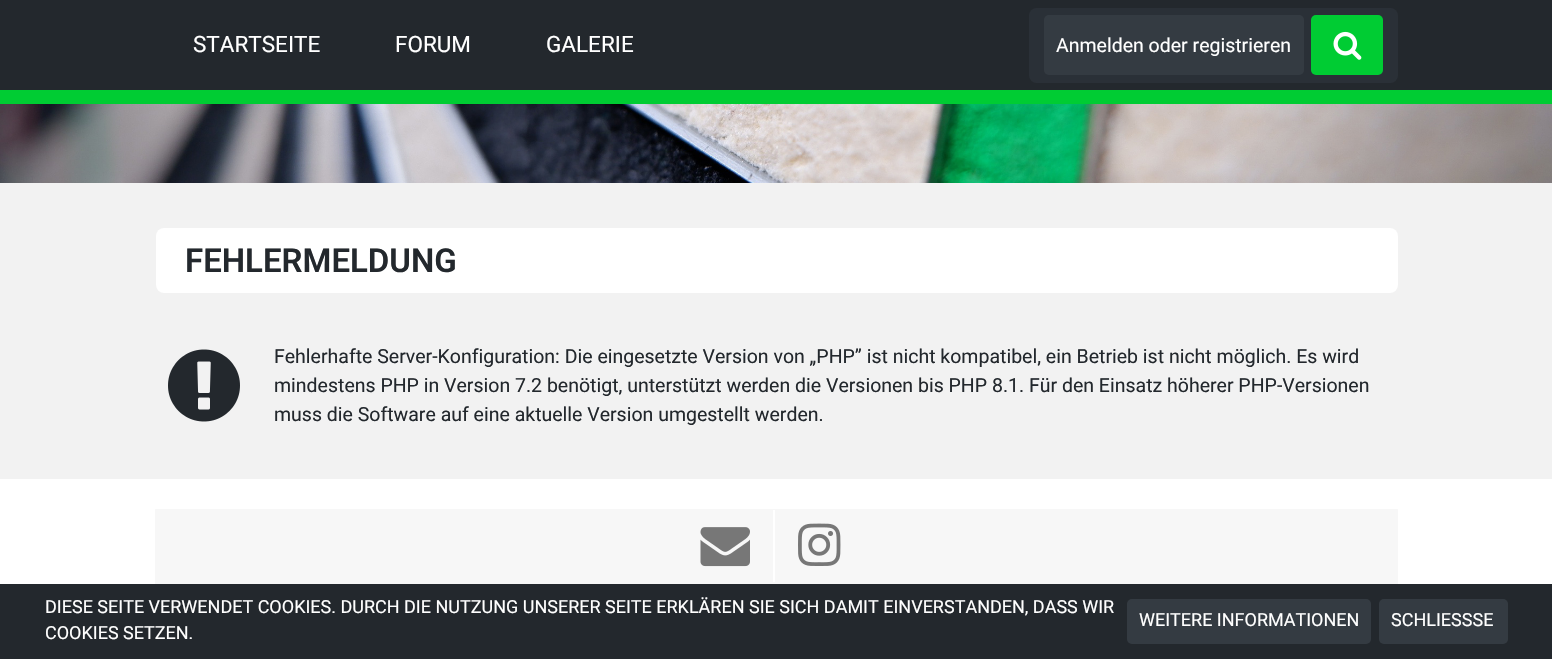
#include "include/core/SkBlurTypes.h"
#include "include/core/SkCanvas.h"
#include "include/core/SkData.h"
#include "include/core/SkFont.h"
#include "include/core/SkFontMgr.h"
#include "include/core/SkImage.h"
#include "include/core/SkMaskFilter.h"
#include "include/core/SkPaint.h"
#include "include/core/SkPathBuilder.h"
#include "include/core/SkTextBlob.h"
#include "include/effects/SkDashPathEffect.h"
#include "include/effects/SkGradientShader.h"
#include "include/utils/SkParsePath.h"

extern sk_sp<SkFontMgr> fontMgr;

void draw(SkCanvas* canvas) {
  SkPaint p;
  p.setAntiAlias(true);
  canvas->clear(SkColorSetRGB(242, 242, 242));
  p.setColor(SkColorSetRGB(35, 40, 45));
  canvas->drawRect(SkRect::MakeLTRB(0, 0, 1552, 90), p);
  p.setColor(SkColorSetRGB(42, 48, 55));
  canvas->drawRoundRect(SkRect::MakeLTRB(1029, 8, 1398, 83), 8, 8, p);
  p.setColor(SkColorSetRGB(52, 59, 66));
  canvas->drawRoundRect(SkRect::MakeLTRB(1044, 15, 1304, 75), 5, 5, p);
  p.setColor(SkColorSetRGB(0, 204, 51));
  canvas->drawRoundRect(SkRect::MakeLTRB(1311, 15, 1383, 75), 5, 5, p);
  canvas->drawImageRect(SkImages::DeferredFromEncodedData(SkData::MakeFromFileName("images/1.png")), SkRect::MakeLTRB(1333, 31, 1362, 60), SkSamplingOptions());
  canvas->drawImageRect(SkImages::DeferredFromEncodedData(SkData::MakeFromFileName("images/2.png")), SkRect::MakeLTRB(0, 104, 1552, 183), SkSamplingOptions());
  canvas->drawRect(SkRect::MakeLTRB(0, 90, 1552, 104), p);
  p.setColor(SK_ColorWHITE);
  canvas->drawRoundRect(SkRect::MakeLTRB(156, 228, 1398, 293), 8, 8, p);
  canvas->drawImageRect(SkImages::DeferredFromEncodedData(SkData::MakeFromFileName("images/3.png")), SkRect::MakeLTRB(168, 349, 240, 422), SkSamplingOptions());
  canvas->drawRect(SkRect::MakeLTRB(0, 479, 1552, 584), p);
  canvas->save();
  canvas->clipRect(SkRect::MakeLTRB(155, 509, 1398, 594));
  p.setColor(SkColorSetRGB(247, 247, 247));
  canvas->drawRoundRect(SkRect::MakeLTRB(155, 503, 1398, 594), 8, 8, p);
  canvas->restore();
  p.setColor(SK_ColorWHITE);
  canvas->drawRect(SkRect::MakeLTRB(773, 510, 775, 582), p);
  canvas->drawImageRect(SkImages::DeferredFromEncodedData(SkData::MakeFromFileName("images/4.png")), SkRect::MakeLTRB(700, 527, 750, 567), SkSamplingOptions());
  canvas->drawImageRect(SkImages::DeferredFromEncodedData(SkData::MakeFromFileName("images/5.png")), SkRect::MakeLTRB(798, 523, 841, 566), SkSamplingOptions());
  p.setColor(SkColorSetRGB(35, 40, 45));
  canvas->drawRect(SkRect::MakeLTRB(0, 584, 1552, 659), p);
  p.setColor(SkColorSetRGB(52, 59, 66));
  canvas->drawRoundRect(SkRect::MakeLTRB(1127, 599, 1371, 644), 5, 5, p);
  canvas->drawRoundRect(SkRect::MakeLTRB(1379, 599, 1508, 644), 5, 5, p);
  SkFont font1(fontMgr->matchFamilyStyle("Roboto", SkFontStyle::Normal()), 22.5f);
  font1.setSubpixel(true);
  p.setColor(SK_ColorWHITE);
  canvas->drawString("STARTSEITE", 193, 52, font1, p);
  canvas->drawString("FORUM", 395, 52, font1, p);
  canvas->drawString("GALERIE", 546, 52, font1, p);
  SkFont font2(fontMgr->matchFamilyStyle("Roboto", SkFontStyle::Normal()), 19.5f);
  font2.setSubpixel(true);
  canvas->drawString("Anmelden oder registrieren", 1056, 52, font2, p);
  SkFont font3(fontMgr->matchFamilyStyle("Roboto", SkFontStyle(600, SkFontStyle::kNormal_Width, SkFontStyle::kUpright_Slant)), 33);
  font3.setSubpixel(true);
  p.setColor(SkColorSetRGB(35, 40, 45));
  canvas->drawString("FEHLERMELDUNG", 185, 272, font3, p);
  canvas->drawString("Fehlerhafte Server-Konfiguration: Die eingesetzte Version von „PHP” ist nicht kompatibel, ein Betrieb ist nicht möglich. Es wird", 274, 363, font2, p);
  canvas->drawString("mindestens PHP in Version 7.2 benötigt, unterstützt werden die Versionen bis PHP 8.1. Für den Einsatz höherer PHP-Versionen", 274, 392, font2, p);
  canvas->drawString("muss die Software auf eine aktuelle Version umgestellt werden.", 274, 421, font2, p);
  SkFont font4(fontMgr->matchFamilyStyle("Roboto", SkFontStyle::Normal()), 18);
  font4.setSubpixel(true);
  p.setColor(SK_ColorWHITE);
  canvas->drawString("DIESE SEITE VERWENDET COOKIES. DURCH DIE NUTZUNG UNSERER SEITE ERKLÄREN SIE SICH DAMIT EINVERSTANDEN, DASS WIR", 45, 613, font4, p);
  canvas->drawString("COOKIES SETZEN.", 45, 639, font4, p);
  canvas->drawString("WEITERE INFORMATIONEN", 1139, 626, font4, p);
  canvas->drawString("SCHLIESSSE", 1391, 626, font4, p);
}
